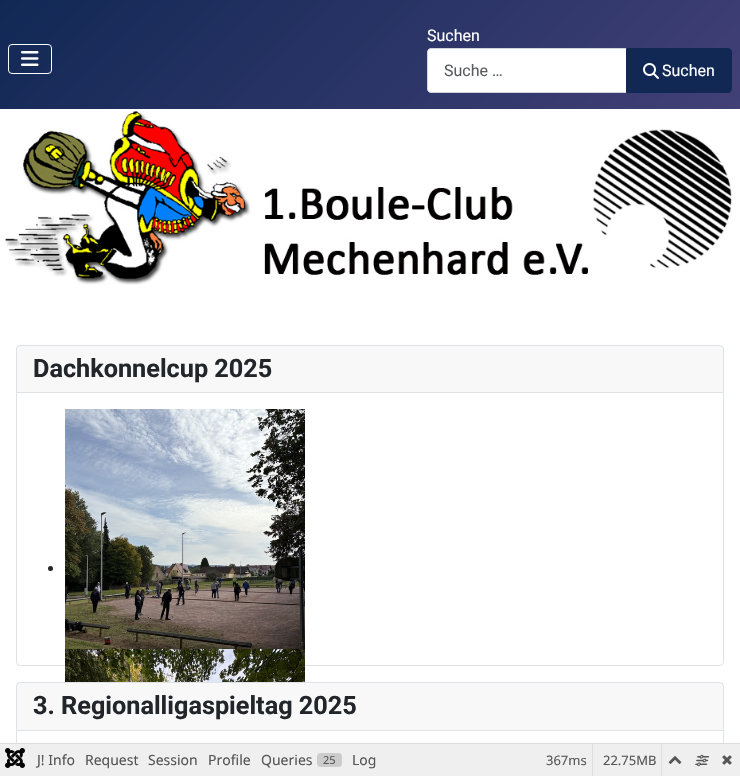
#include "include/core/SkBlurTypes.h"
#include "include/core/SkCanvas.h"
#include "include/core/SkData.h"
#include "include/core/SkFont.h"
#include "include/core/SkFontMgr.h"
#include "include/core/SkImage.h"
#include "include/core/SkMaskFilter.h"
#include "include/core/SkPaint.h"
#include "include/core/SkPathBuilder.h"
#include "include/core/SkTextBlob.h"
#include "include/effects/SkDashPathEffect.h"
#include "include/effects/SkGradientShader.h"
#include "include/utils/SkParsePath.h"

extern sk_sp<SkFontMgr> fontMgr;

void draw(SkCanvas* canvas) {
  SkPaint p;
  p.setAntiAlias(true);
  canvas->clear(SK_ColorWHITE);
  {
    const SkColor colors[] = {SkColorSetRGB(17, 40, 85), SkColorSetRGB(66, 64, 119)};
    const float stops[] = {0, 1};
    const SkPoint ends[] = {{158, -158}, {582, 267}};
    p.setShader(SkGradientShader::MakeLinear(ends, colors, stops, 2, SkTileMode::kClamp));
    p.setAlpha(255);
  }
  canvas->drawRect(SkRect::MakeLTRB(0, 0, 740, 109), p);
  p.setStyle(SkPaint::kStroke_Style);
  p.setStrokeWidth(1);
  p.setShader(nullptr);
  p.setColor(SK_ColorWHITE);
  canvas->drawRoundRect(SkRect::MakeLTRB(8.5f, 44.5f, 51.5f, 73.5f), 3.5f, 3.5f, p);
  canvas->drawImageRect(SkImages::DeferredFromEncodedData(SkData::MakeFromFileName("images/1.png")), SkRect::MakeLTRB(21, 51, 39, 66), SkSamplingOptions());
  p.setStyle(SkPaint::kFill_Style);
  canvas->drawPath(SkPathBuilder().moveTo(431, 48.5f).lineTo(626.5f, 48.5f).lineTo(626.5f, 92.5f).lineTo(431, 92.5f).cubicTo(429, 92.5f, 427.5f, 91, 427.5f, 89).lineTo(427.5f, 52).cubicTo(427.5f, 50, 429, 48.5f, 431, 48.5f).close().detach(), p);
  p.setStyle(SkPaint::kStroke_Style);
  p.setColor(SkColorSetRGB(206, 212, 218));
  canvas->drawPath(SkPathBuilder().moveTo(431, 48.5f).lineTo(626.5f, 48.5f).lineTo(626.5f, 92.5f).lineTo(431, 92.5f).cubicTo(429, 92.5f, 427.5f, 91, 427.5f, 89).lineTo(427.5f, 52).cubicTo(427.5f, 50, 429, 48.5f, 431, 48.5f).close().detach(), p);
  p.setStyle(SkPaint::kFill_Style);
  p.setColor(SkColorSetRGB(17, 40, 85));
  canvas->drawPath(SkPathBuilder().moveTo(626.5f, 48.5f).lineTo(728, 48.5f).cubicTo(730, 48.5f, 731.5f, 50, 731.5f, 52).lineTo(731.5f, 89).cubicTo(731.5f, 91, 730, 92.5f, 728, 92.5f).lineTo(626.5f, 92.5f).close().detach(), p);
  p.setStyle(SkPaint::kStroke_Style);
  canvas->drawPath(SkPathBuilder().moveTo(626.5f, 48.5f).lineTo(728, 48.5f).cubicTo(730, 48.5f, 731.5f, 50, 731.5f, 52).lineTo(731.5f, 89).cubicTo(731.5f, 91, 730, 92.5f, 728, 92.5f).lineTo(626.5f, 92.5f).close().detach(), p);
  canvas->drawImageRect(SkImages::DeferredFromEncodedData(SkData::MakeFromFileName("images/2.png")), SkRect::MakeLTRB(643, 63, 659, 79), SkSamplingOptions());
  canvas->drawImageRect(SkImages::DeferredFromEncodedData(SkData::MakeFromFileName("images/3.png")), SkRect::MakeLTRB(5, 111, 732, 285), SkSamplingOptions());
  p.setColor(SkColorSetRGB(223, 227, 231));
  canvas->drawRoundRect(SkRect::MakeLTRB(16.5f, 345.5f, 723.5f, 665.5f), 3.5f, 3.5f, p);
  p.setStyle(SkPaint::kFill_Style);
  p.setColor(SkColorSetARGB(8, 34, 38, 42));
  canvas->drawRect(SkRect::MakeLTRB(17, 346, 723, 392), p);
  p.setColor(SkColorSetRGB(223, 227, 231));
  canvas->drawRect(SkRect::MakeLTRB(17, 392, 723, 393), p);
  p.setColor(SkColorSetRGB(34, 38, 42));
  canvas->drawCircle(50.5f, 568.5f, 2.5f, p);
  canvas->drawImageRect(SkImages::DeferredFromEncodedData(SkData::MakeFromFileName("images/4.png")), SkRect::MakeLTRB(65, 409, 305, 649), SkSamplingOptions());
  canvas->drawImageRect(SkImages::DeferredFromEncodedData(SkData::MakeFromFileName("images/5.png")), SkRect::MakeLTRB(65, 649, 305, 682), SkSamplingOptions());
  p.setStyle(SkPaint::kStroke_Style);
  p.setColor(SkColorSetRGB(223, 227, 231));
  canvas->drawRoundRect(SkRect::MakeLTRB(16.5f, 682.5f, 723.5f, 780.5f), 3.5f, 3.5f, p);
  p.setStyle(SkPaint::kFill_Style);
  p.setColor(SkColorSetARGB(8, 34, 38, 42));
  canvas->drawRect(SkRect::MakeLTRB(17, 683, 723, 730), p);
  p.setColor(SkColorSetRGB(223, 227, 231));
  canvas->drawRect(SkRect::MakeLTRB(17, 730, 723, 731), p);
  p.setColor(SkColorSetRGB(221, 221, 221));
  canvas->drawRect(SkRect::MakeLTRB(0, 743, 740, 744), p);
  p.setColor(SkColorSetRGB(239, 239, 239));
  canvas->drawRect(SkRect::MakeLTRB(0, 744, 740, 776), p);
  canvas->drawImageRect(SkImages::DeferredFromEncodedData(SkData::MakeFromFileName("images/6.png")), SkRect::MakeLTRB(5, 748, 25, 768), SkSamplingOptions());
  p.setColor(SkColorSetRGB(204, 204, 204));
  canvas->drawRoundRect(SkRect::MakeLTRB(317, 753, 342, 767), 4, 4, p);
  p.setColor(SkColorSetRGB(221, 221, 221));
  canvas->drawRect(SkRect::MakeLTRB(592, 744, 593, 776), p);
  canvas->drawRect(SkRect::MakeLTRB(661, 744, 662, 776), p);
  canvas->drawImageRect(SkImages::DeferredFromEncodedData(SkData::MakeFromFileName("images/7.png")), SkRect::MakeLTRB(668, 756, 682, 764), SkSamplingOptions());
  canvas->drawImageRect(SkImages::DeferredFromEncodedData(SkData::MakeFromFileName("images/8.png")), SkRect::MakeLTRB(695, 754, 709, 767), SkSamplingOptions());
  canvas->drawImageRect(SkImages::DeferredFromEncodedData(SkData::MakeFromFileName("images/9.png")), SkRect::MakeLTRB(722, 755, 732, 765), SkSamplingOptions());
  SkFont font1(fontMgr->matchFamilyStyle("Roboto", SkFontStyle::Normal()), 16);
  font1.setSubpixel(true);
  p.setColor(SK_ColorWHITE);
  canvas->drawString("Suchen", 427, 41, font1, p);
  p.setColor(SkColorSetRGB(89, 92, 95));
  canvas->drawString("Suche …", 444, 76, font1, p);
  p.setColor(SK_ColorWHITE);
  canvas->drawString("Suchen", 662, 76, font1, p);
  SkFont font2(fontMgr->matchFamilyStyle("Roboto", SkFontStyle::Bold()), 25.25f);
  font2.setSubpixel(true);
  p.setColor(SkColorSetRGB(34, 38, 42));
  canvas->drawString("Dachkonnelcup 2025", 33, 377, font2, p);
  canvas->drawString("3. Regionalligaspieltag 2025", 33, 714, font2, p);
  SkFont font3(fontMgr->matchFamilyStyle("Noto Sans", SkFontStyle::Normal()), 14);
  font3.setSubpixel(true);
  p.setColor(SkColorSetRGB(85, 85, 85));
  canvas->drawString("J! Info", 37, 765, font3, p);
  canvas->drawString("Request", 85, 765, font3, p);
  canvas->drawString("Session", 148, 765, font3, p);
  canvas->drawString("Profile", 208, 765, font3, p);
  canvas->drawString("Queries", 261, 765, font3, p);
  SkFont font4(fontMgr->matchFamilyStyle("Noto Sans", SkFontStyle::Normal()), 11);
  font4.setSubpixel(true);
  canvas->drawString("25", 323, 764, font4, p);
  canvas->drawString("Log", 352, 765, font3, p);
  SkFont font5(fontMgr->matchFamilyStyle("Noto Sans", SkFontStyle::Normal()), 13);
  font5.setSubpixel(true);
  canvas->drawString("367ms", 546, 765, font5, p);
  canvas->drawString("22.75MB", 603, 765, font5, p);
}
